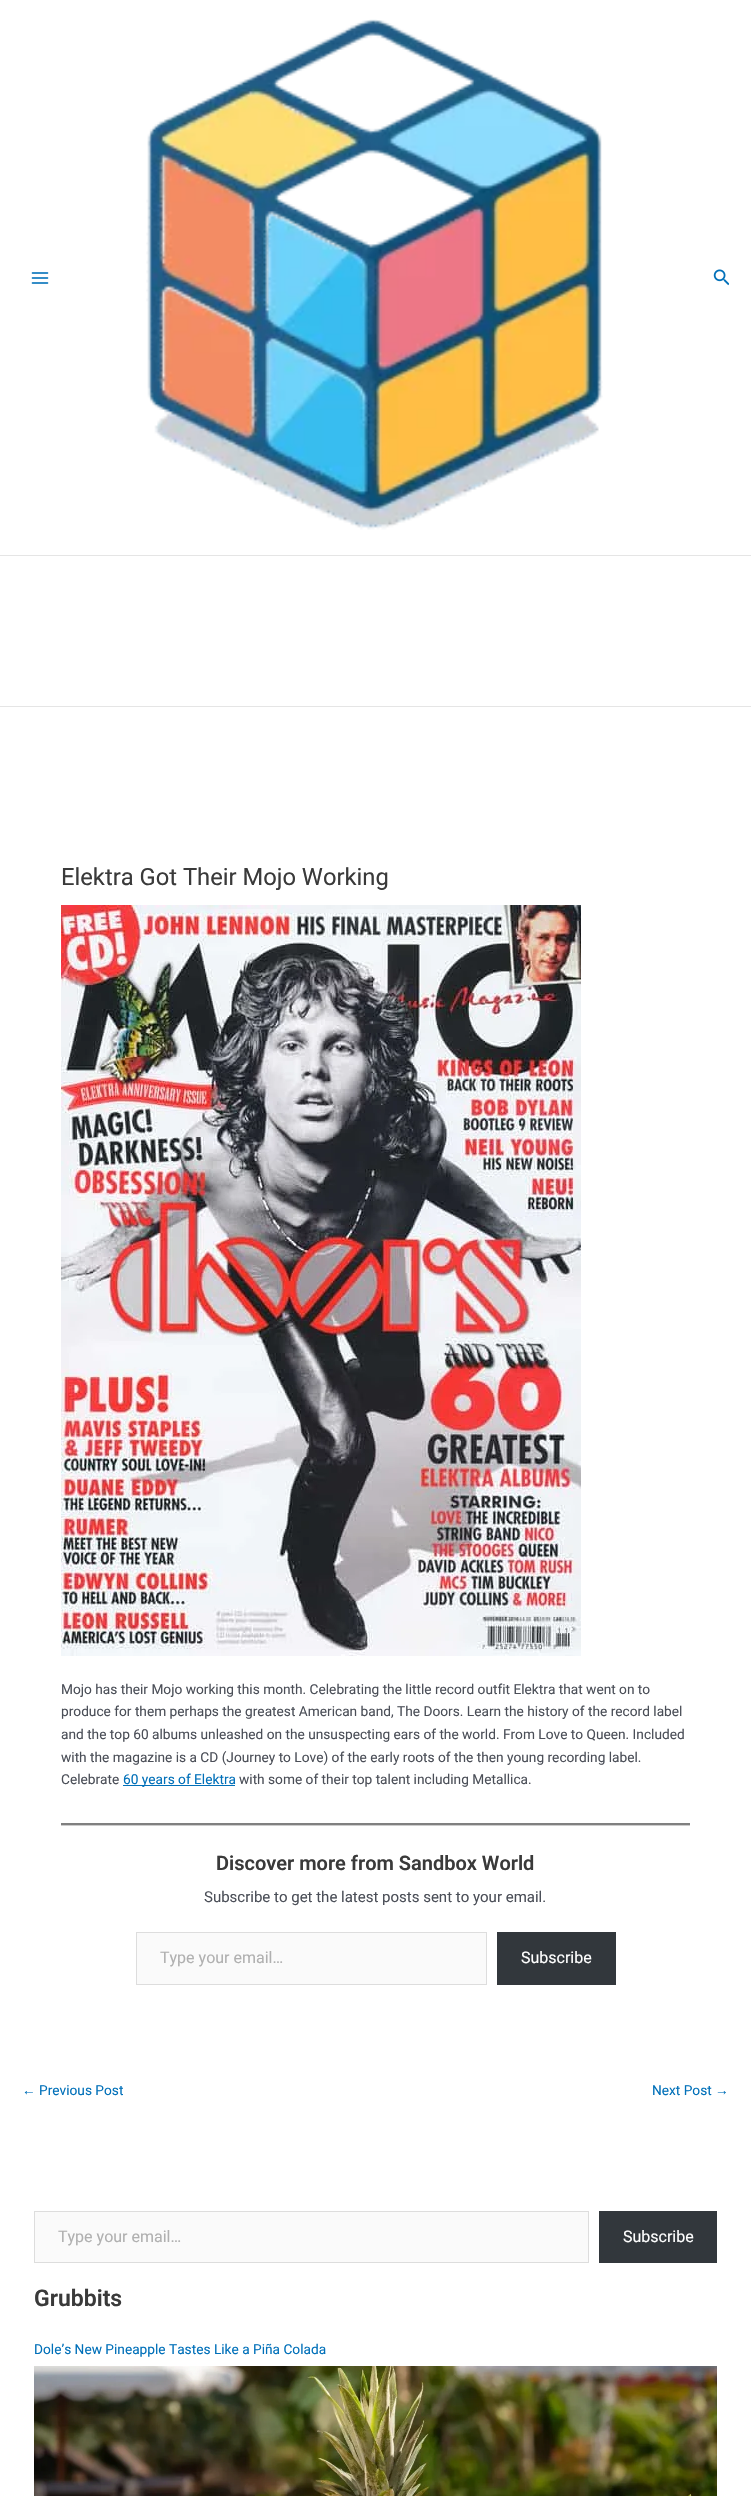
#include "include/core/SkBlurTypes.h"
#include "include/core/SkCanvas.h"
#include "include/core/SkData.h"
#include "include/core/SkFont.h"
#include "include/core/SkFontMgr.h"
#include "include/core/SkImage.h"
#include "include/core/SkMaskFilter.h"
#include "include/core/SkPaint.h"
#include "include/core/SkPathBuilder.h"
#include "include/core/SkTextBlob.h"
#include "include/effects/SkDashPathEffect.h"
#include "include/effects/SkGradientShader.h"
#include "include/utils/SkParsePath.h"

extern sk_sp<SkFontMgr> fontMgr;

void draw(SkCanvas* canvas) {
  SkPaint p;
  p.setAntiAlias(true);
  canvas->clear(SK_ColorWHITE);
  p.setColor(SkColorSetRGB(229, 229, 229));
  canvas->drawRect(SkRect::MakeLTRB(0, 555, 751, 556), p);
  canvas->drawImageRect(SkImages::DeferredFromEncodedData(SkData::MakeFromFileName("images/1.png")), SkRect::MakeLTRB(31, 272, 49, 284), SkSamplingOptions());
  canvas->drawImageRect(SkImages::DeferredFromEncodedData(SkData::MakeFromFileName("images/2.png")), SkRect::MakeLTRB(146, 19, 603, 530), SkSamplingOptions());
  canvas->drawImageRect(SkImages::DeferredFromEncodedData(SkData::MakeFromFileName("images/3.png")), SkRect::MakeLTRB(713, 269, 729, 286), SkSamplingOptions());
  canvas->drawRect(SkRect::MakeLTRB(0, 706, 751, 707), p);
  canvas->drawImageRect(SkImages::DeferredFromEncodedData(SkData::MakeFromFileName("images/4.png")), SkRect::MakeLTRB(61, 905, 581, 1656), SkSamplingOptions());
  p.setColor(SkColorSetRGB(1, 112, 185));
  canvas->drawRect(SkRect::MakeLTRB(123, 1785, 235, 1786), p);
  p.setColor(SkColorSetRGB(204, 204, 204));
  canvas->drawRect(SkRect::MakeLTRB(61, 1825, 690, 1826), p);
  p.setColor(SkColorSetRGB(128, 128, 128));
  canvas->drawRect(SkRect::MakeLTRB(61, 1823, 690, 1825), p);
  p.setColor(SkColorSetRGB(250, 250, 250));
  canvas->drawRect(SkRect::MakeLTRB(136.5f, 1932.5f, 486.5f, 1984.5f), p);
  p.setStyle(SkPaint::kStroke_Style);
  p.setStrokeWidth(1);
  p.setColor(SkColorSetRGB(221, 221, 221));
  canvas->drawRect(SkRect::MakeLTRB(136.5f, 1932.5f, 486.5f, 1984.5f), p);
  p.setStyle(SkPaint::kFill_Style);
  p.setColor(SkColorSetRGB(50, 55, 60));
  canvas->drawRect(SkRect::MakeLTRB(497, 1932, 616, 1985), p);
  p.setColor(SkColorSetRGB(250, 250, 250));
  canvas->drawRect(SkRect::MakeLTRB(34.5f, 2211.5f, 588.5f, 2262.5f), p);
  p.setStyle(SkPaint::kStroke_Style);
  p.setColor(SkColorSetRGB(221, 221, 221));
  canvas->drawRect(SkRect::MakeLTRB(34.5f, 2211.5f, 588.5f, 2262.5f), p);
  p.setStyle(SkPaint::kFill_Style);
  p.setColor(SkColorSetRGB(50, 55, 60));
  canvas->drawRect(SkRect::MakeLTRB(599, 2211, 717, 2263), p);
  canvas->drawImageRect(SkImages::DeferredFromEncodedData(SkData::MakeFromFileName("images/5.png")), SkRect::MakeLTRB(34, 2366, 717, 2496), SkSamplingOptions());
  SkFont font1(fontMgr->matchFamilyStyle("Roboto", SkFontStyle::Normal()), 23.75f);
  font1.setSubpixel(true);
  p.setColor(SkColorSetRGB(58, 58, 58));
  canvas->drawString("Elektra Got Their Mojo Working", 61, 885, font1, p);
  SkFont font2(fontMgr->matchFamilyStyle("Roboto", SkFontStyle::Normal()), 13.7f);
  font2.setSubpixel(true);
  p.setColor(SkColorSetRGB(75, 79, 88));
  canvas->drawString("Mojo has their Mojo working this month. Celebrating the little record outfit Elektra that went on to", 61, 1694, font2, p);
  canvas->drawString("produce for them perhaps the greatest American band, The Doors. Learn the history of the record label", 61, 1716, font2, p);
  canvas->drawString("and the top 60 albums unleashed on the unsuspecting ears of the world. From Love to Queen. Included", 61, 1739, font2, p);
  canvas->drawString("with the magazine is a CD (Journey to Love) of the early roots of the then young recording label.", 61, 1762, font2, p);
  canvas->drawString("Celebrate", 61, 1784, font2, p);
  p.setColor(SkColorSetRGB(1, 112, 185));
  canvas->drawString("60 years of Elektra", 123, 1784, font2, p);
  p.setColor(SkColorSetRGB(75, 79, 88));
  canvas->drawString("with some of their top talent including Metallica.", 239, 1784, font2, p);
  SkFont font3(fontMgr->matchFamilyStyle("Roboto", SkFontStyle(600, SkFontStyle::kNormal_Width, SkFontStyle::kUpright_Slant)), 20);
  font3.setSubpixel(true);
  p.setColor(SkColorSetRGB(58, 58, 58));
  canvas->drawString("Discover more from Sandbox World", 216, 1870, font3, p);
  SkFont font4(fontMgr->matchFamilyStyle("Roboto", SkFontStyle::Normal()), 15);
  font4.setSubpixel(true);
  p.setColor(SkColorSetRGB(75, 79, 88));
  canvas->drawString("Subscribe to get the latest posts sent to your email.", 204, 1902, font4, p);
  SkFont font5(fontMgr->matchFamilyStyle("Roboto", SkFontStyle::Normal()), 16);
  font5.setSubpixel(true);
  p.setColor(SkColorSetRGB(176, 176, 176));
  canvas->drawString("Type your email…", 160, 1963, font5, p);
  p.setColor(SK_ColorWHITE);
  canvas->drawString("Subscribe", 521, 1963, font5, p);
  SkFont font6(fontMgr->matchFamilyStyle("Liberation Sans", SkFontStyle::Normal()), 13.7f);
  font6.setSubpixel(true);
  p.setColor(SkColorSetRGB(1, 112, 185));
  canvas->drawString("←", 22, 2095, font6, p);
  canvas->drawString("Previous Post", 39, 2095, font2, p);
  canvas->drawString("Next Post", 652, 2095, font2, p);
  canvas->drawString("→", 715, 2095, font6, p);
  p.setColor(SkColorSetRGB(176, 176, 176));
  canvas->drawString("Type your email…", 58, 2242, font5, p);
  p.setColor(SK_ColorWHITE);
  canvas->drawString("Subscribe", 623, 2242, font5, p);
  SkFont font7(fontMgr->matchFamilyStyle("Roboto", SkFontStyle(600, SkFontStyle::kNormal_Width, SkFontStyle::kUpright_Slant)), 23);
  font7.setSubpixel(true);
  p.setColor(SkColorSetRGB(58, 58, 58));
  canvas->drawString("Grubbits", 34, 2306, font7, p);
  p.setColor(SkColorSetRGB(1, 112, 185));
  canvas->drawString("Dole’s New Pineapple Tastes Like a Piña Colada", 34, 2354, font2, p);
}
